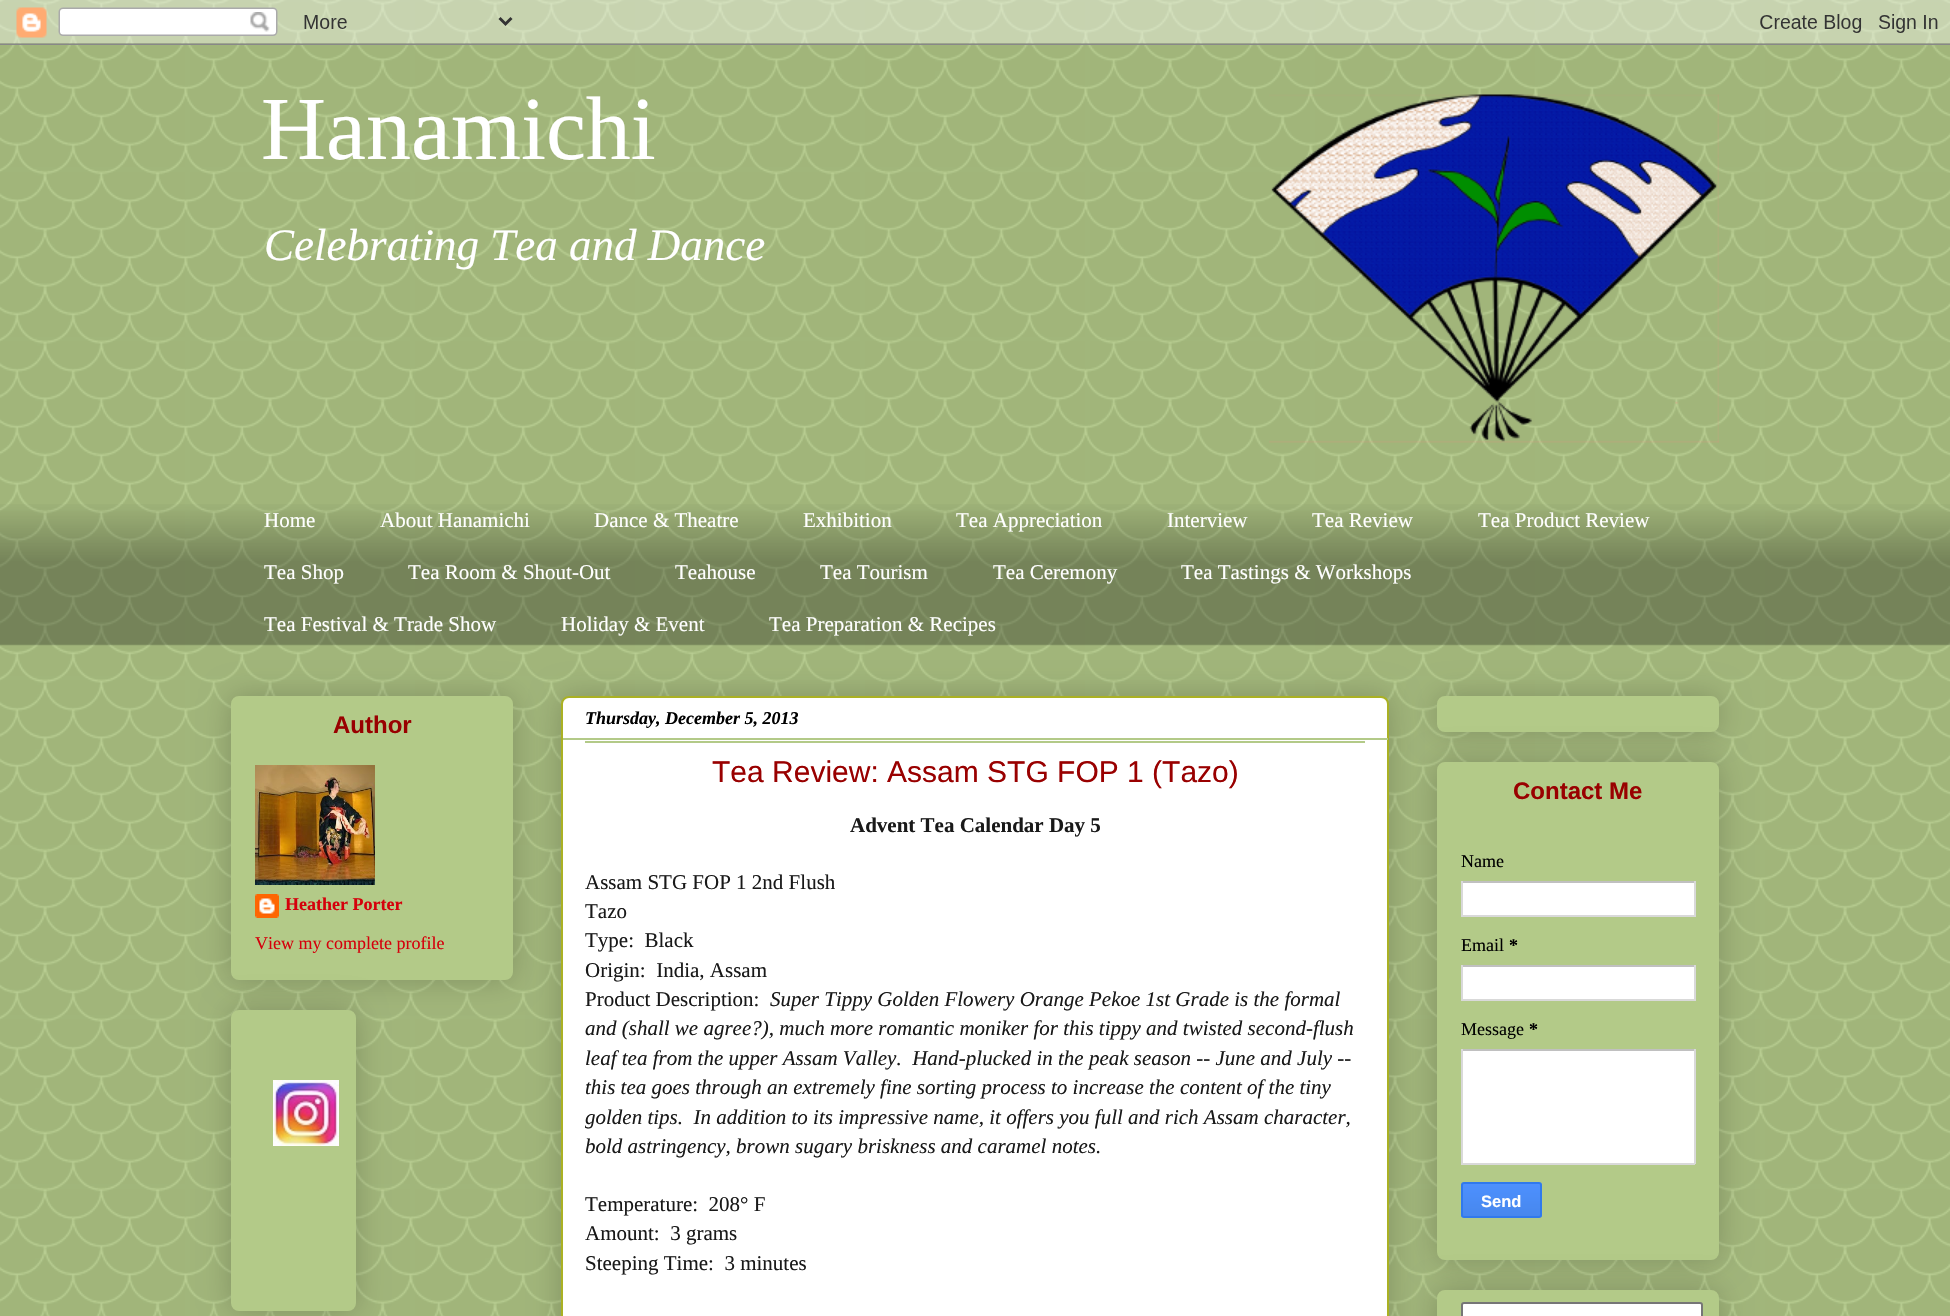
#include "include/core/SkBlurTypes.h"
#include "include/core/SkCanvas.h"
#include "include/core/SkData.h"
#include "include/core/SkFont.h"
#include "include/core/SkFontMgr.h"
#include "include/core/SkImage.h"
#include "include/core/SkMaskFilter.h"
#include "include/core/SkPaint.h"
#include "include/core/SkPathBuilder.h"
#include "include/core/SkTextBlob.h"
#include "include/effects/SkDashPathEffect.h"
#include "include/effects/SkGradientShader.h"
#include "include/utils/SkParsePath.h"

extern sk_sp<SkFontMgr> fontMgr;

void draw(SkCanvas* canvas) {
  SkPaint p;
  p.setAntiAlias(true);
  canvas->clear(SkColorSetRGB(179, 202, 136));
  canvas->drawImageRect(SkImages::DeferredFromEncodedData(SkData::MakeFromFileName("images/1.png")), SkRect::MakeLTRB(0, 0, 1950, 1316), SkSamplingOptions());
  canvas->drawImageRect(SkImages::DeferredFromEncodedData(SkData::MakeFromFileName("images/2.png")), SkRect::MakeLTRB(0, 0, 1950, 45), SkSamplingOptions());
  canvas->drawImageRect(SkImages::DeferredFromEncodedData(SkData::MakeFromFileName("images/3.png")), SkRect::MakeLTRB(1269, 94, 1719, 443), SkSamplingOptions());
  canvas->drawImageRect(SkImages::DeferredFromEncodedData(SkData::MakeFromFileName("images/4.png")), SkRect::MakeLTRB(0, 504, 1950, 646), SkSamplingOptions());
  p.setColor(SkColorSetARGB(51, 0, 0, 0));
  p.setMaskFilter(SkMaskFilter::MakeBlur(kNormal_SkBlurStyle, 15));
  canvas->drawRoundRect(SkRect::MakeLTRB(231, 696, 513, 980), 8, 8, p);
  p.setMaskFilter(nullptr);
  p.setColor(SkColorSetRGB(179, 202, 136));
  canvas->drawRoundRect(SkRect::MakeLTRB(232, 697, 512, 979), 7, 7, p);
  p.setStyle(SkPaint::kStroke_Style);
  p.setStrokeWidth(2);
  canvas->drawRoundRect(SkRect::MakeLTRB(232, 697, 512, 979), 7, 7, p);
  canvas->drawImageRect(SkImages::DeferredFromEncodedData(SkData::MakeFromFileName("images/5.png")), SkRect::MakeLTRB(255, 765, 375, 885), SkSamplingOptions());
  canvas->drawImageRect(SkImages::DeferredFromEncodedData(SkData::MakeFromFileName("images/6.png")), SkRect::MakeLTRB(255, 894, 279, 918), SkSamplingOptions());
  p.setStyle(SkPaint::kFill_Style);
  p.setColor(SkColorSetARGB(51, 0, 0, 0));
  p.setMaskFilter(SkMaskFilter::MakeBlur(kNormal_SkBlurStyle, 15));
  canvas->drawRoundRect(SkRect::MakeLTRB(231, 1010, 356, 1311), 8, 8, p);
  p.setMaskFilter(nullptr);
  p.setColor(SkColorSetRGB(179, 202, 136));
  canvas->drawRoundRect(SkRect::MakeLTRB(232, 1011, 355, 1310), 7, 7, p);
  p.setStyle(SkPaint::kStroke_Style);
  canvas->drawRoundRect(SkRect::MakeLTRB(232, 1011, 355, 1310), 7, 7, p);
  canvas->drawImageRect(SkImages::DeferredFromEncodedData(SkData::MakeFromFileName("images/7.png")), SkRect::MakeLTRB(273, 1080, 339, 1146), SkSamplingOptions());
  p.setStyle(SkPaint::kFill_Style);
  p.setColor(SkColorSetARGB(51, 0, 0, 0));
  p.setMaskFilter(SkMaskFilter::MakeBlur(kNormal_SkBlurStyle, 15));
  canvas->drawRoundRect(SkRect::MakeLTRB(561, 696, 1389, 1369), 8, 8, p);
  p.setMaskFilter(nullptr);
  p.setColor(SK_ColorWHITE);
  canvas->drawRoundRect(SkRect::MakeLTRB(562, 697, 1388, 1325), 7, 7, p);
  p.setStyle(SkPaint::kStroke_Style);
  p.setColor(SkColorSetRGB(170, 177, 35));
  canvas->drawRoundRect(SkRect::MakeLTRB(562, 697, 1388, 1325), 7, 7, p);
  p.setStyle(SkPaint::kFill_Style);
  p.setColor(SkColorSetRGB(179, 202, 136));
  canvas->drawRect(SkRect::MakeLTRB(563, 738, 1388, 740), p);
  canvas->drawRect(SkRect::MakeLTRB(585, 741, 1365, 743), p);
  p.setColor(SkColorSetARGB(51, 0, 0, 0));
  p.setMaskFilter(SkMaskFilter::MakeBlur(kNormal_SkBlurStyle, 15));
  canvas->drawRoundRect(SkRect::MakeLTRB(1437, 696, 1719, 732), 8, 8, p);
  p.setMaskFilter(nullptr);
  p.setColor(SkColorSetRGB(179, 202, 136));
  canvas->drawRoundRect(SkRect::MakeLTRB(1438, 697, 1718, 731), 7, 7, p);
  p.setStyle(SkPaint::kStroke_Style);
  canvas->drawRoundRect(SkRect::MakeLTRB(1438, 697, 1718, 731), 7, 7, p);
  p.setStyle(SkPaint::kFill_Style);
  p.setColor(SkColorSetARGB(51, 0, 0, 0));
  p.setMaskFilter(SkMaskFilter::MakeBlur(kNormal_SkBlurStyle, 15));
  canvas->drawRoundRect(SkRect::MakeLTRB(1437, 762, 1719, 1260), 8, 8, p);
  p.setMaskFilter(nullptr);
  p.setColor(SkColorSetRGB(179, 202, 136));
  canvas->drawRoundRect(SkRect::MakeLTRB(1438, 763, 1718, 1259), 7, 7, p);
  p.setStyle(SkPaint::kStroke_Style);
  canvas->drawRoundRect(SkRect::MakeLTRB(1438, 763, 1718, 1259), 7, 7, p);
  p.setStyle(SkPaint::kFill_Style);
  p.setColor(SK_ColorWHITE);
  canvas->drawRect(SkRect::MakeLTRB(1463, 883, 1694, 915), p);
  p.setColor(SkColorSetRGB(192, 192, 192));
  canvas->drawRect(SkRect::MakeLTRB(1461, 881, 1695, 883), p);
  p.setColor(SkColorSetRGB(217, 217, 217));
  canvas->drawRect(SkRect::MakeLTRB(1694, 881, 1696, 917), p);
  canvas->drawRect(SkRect::MakeLTRB(1461, 915, 1695, 917), p);
  canvas->drawRect(SkRect::MakeLTRB(1461, 881, 1463, 917), p);
  p.setColor(SK_ColorWHITE);
  canvas->drawRect(SkRect::MakeLTRB(1463, 967, 1694, 999), p);
  p.setColor(SkColorSetRGB(192, 192, 192));
  canvas->drawRect(SkRect::MakeLTRB(1461, 965, 1695, 967), p);
  p.setColor(SkColorSetRGB(217, 217, 217));
  canvas->drawRect(SkRect::MakeLTRB(1694, 965, 1696, 1001), p);
  canvas->drawRect(SkRect::MakeLTRB(1461, 999, 1695, 1001), p);
  canvas->drawRect(SkRect::MakeLTRB(1461, 965, 1463, 1001), p);
  p.setColor(SK_ColorWHITE);
  canvas->drawRect(SkRect::MakeLTRB(1463, 1051, 1694, 1163), p);
  p.setColor(SkColorSetRGB(192, 192, 192));
  canvas->drawRect(SkRect::MakeLTRB(1461, 1049, 1695, 1051), p);
  p.setColor(SkColorSetRGB(217, 217, 217));
  canvas->drawRect(SkRect::MakeLTRB(1694, 1049, 1696, 1164), p);
  canvas->drawRect(SkRect::MakeLTRB(1461, 1163, 1695, 1165), p);
  canvas->drawRect(SkRect::MakeLTRB(1461, 1049, 1463, 1164), p);
  canvas->save();
  canvas->clipPath(SkPathBuilder().moveTo(1464, 1182).lineTo(1539, 1182).cubicTo(1540.5f, 1182, 1542, 1183.5f, 1542, 1185).lineTo(1542, 1215).cubicTo(1542, 1216.5f, 1540.5f, 1218, 1539, 1218).lineTo(1464, 1218).cubicTo(1462.5f, 1218, 1461, 1216.5f, 1461, 1215).lineTo(1461, 1185).cubicTo(1461, 1183.5f, 1462.5f, 1182, 1464, 1182).close().detach(), true);
  {
    const SkColor colors[] = {SkColorSetRGB(77, 144, 254), SkColorSetRGB(71, 135, 237)};
    const float stops[] = {0, 1};
    const SkPoint ends[] = {{1502, 1184}, {1502, 1217}};
    p.setShader(SkGradientShader::MakeLinear(ends, colors, stops, 2, SkTileMode::kClamp));
    p.setAlpha(255);
  }
  canvas->drawRect(SkRect::MakeLTRB(1461, 1184, 1542, 1217), p);
  canvas->restore();
  p.setStyle(SkPaint::kStroke_Style);
  p.setShader(nullptr);
  p.setColor(SkColorSetRGB(48, 121, 237));
  canvas->drawRoundRect(SkRect::MakeLTRB(1462, 1183, 1541, 1217), 2, 2, p);
  p.setStyle(SkPaint::kFill_Style);
  p.setColor(SkColorSetARGB(51, 0, 0, 0));
  p.setMaskFilter(SkMaskFilter::MakeBlur(kNormal_SkBlurStyle, 15));
  canvas->drawRoundRect(SkRect::MakeLTRB(1437, 1290, 1719, 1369), 8, 8, p);
  p.setMaskFilter(nullptr);
  p.setColor(SkColorSetRGB(179, 202, 136));
  canvas->drawRoundRect(SkRect::MakeLTRB(1438, 1291, 1718, 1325), 7, 7, p);
  p.setStyle(SkPaint::kStroke_Style);
  canvas->drawRoundRect(SkRect::MakeLTRB(1438, 1291, 1718, 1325), 7, 7, p);
  p.setStyle(SkPaint::kFill_Style);
  p.setColor(SK_ColorWHITE);
  canvas->drawRoundRect(SkRect::MakeLTRB(1462, 1303, 1702, 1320), 2, 2, p);
  p.setStyle(SkPaint::kStroke_Style);
  p.setColor(SkColorSetRGB(118, 118, 118));
  canvas->drawRoundRect(SkRect::MakeLTRB(1462, 1303, 1702, 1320), 2, 2, p);
  SkFont font1(fontMgr->matchFamilyStyle("Liberation Serif", SkFontStyle::Normal()), 90);
  font1.setSubpixel(true);
  p.setStyle(SkPaint::kFill_Style);
  p.setColor(SK_ColorWHITE);
  canvas->drawString("Hanamichi", 261, 159, font1, p);
  SkFont font2(fontMgr->matchFamilyStyle("Liberation Serif", SkFontStyle::Italic()), 45);
  font2.setSubpixel(true);
  canvas->drawString("Celebrating Tea and Dance", 264, 260, font2, p);
  SkFont font3(fontMgr->matchFamilyStyle("Liberation Serif", SkFontStyle::Normal()), 21);
  font3.setSubpixel(true);
  canvas->drawString("Home", 264, 527, font3, p);
  canvas->drawString("About Hanamichi", 380, 527, font3, p);
  canvas->drawString("Dance & Theatre", 594, 527, font3, p);
  canvas->drawString("Exhibition", 803, 527, font3, p);
  canvas->drawString("Tea Appreciation", 956, 527, font3, p);
  canvas->drawString("Interview", 1167, 527, font3, p);
  canvas->drawString("Tea Review", 1312, 527, font3, p);
  canvas->drawString("Tea Product Review", 1478, 527, font3, p);
  canvas->drawString("Tea Shop", 264, 579, font3, p);
  canvas->drawString("Tea Room & Shout-Out", 408, 579, font3, p);
  canvas->drawString("Teahouse", 675, 579, font3, p);
  canvas->drawString("Tea Tourism", 820, 579, font3, p);
  canvas->drawString("Tea Ceremony", 993, 579, font3, p);
  canvas->drawString("Tea Tastings & Workshops", 1181, 579, font3, p);
  canvas->drawString("Tea Festival & Trade Show", 264, 631, font3, p);
  canvas->drawString("Holiday & Event", 561, 631, font3, p);
  canvas->drawString("Tea Preparation & Recipes", 769, 631, font3, p);
  SkFont font4(fontMgr->matchFamilyStyle("Liberation Sans", SkFontStyle::Bold()), 24);
  font4.setSubpixel(true);
  p.setColor(SkColorSetRGB(153, 0, 0));
  canvas->drawString("Author", 333, 733, font4, p);
  SkFont font5(fontMgr->matchFamilyStyle("Liberation Serif", SkFontStyle::Bold()), 18);
  font5.setSubpixel(true);
  p.setColor(SkColorSetRGB(213, 0, 11));
  canvas->drawString("Heather Porter", 285, 910, font5, p);
  SkFont font6(fontMgr->matchFamilyStyle("Liberation Serif", SkFontStyle::Normal()), 18);
  font6.setSubpixel(true);
  canvas->drawString("View my complete profile", 255, 949, font6, p);
  SkFont font7(fontMgr->matchFamilyStyle("Liberation Serif", SkFontStyle::BoldItalic()), 18);
  font7.setSubpixel(true);
  p.setColor(SK_ColorBLACK);
  canvas->drawString("Thursday, December 5, 2013", 585, 724, font7, p);
  SkFont font8(fontMgr->matchFamilyStyle("Liberation Sans", SkFontStyle::Normal()), 30);
  font8.setSubpixel(true);
  p.setColor(SkColorSetRGB(153, 0, 0));
  canvas->drawString("Tea Review: Assam STG FOP 1 (Tazo)", 712, 782, font8, p);
  SkFont font9(fontMgr->matchFamilyStyle("Liberation Serif", SkFontStyle::Bold()), 21);
  font9.setSubpixel(true);
  p.setColor(SkColorSetRGB(25, 25, 25));
  canvas->drawString("Advent Tea Calendar Day 5", 850, 832, font9, p);
  canvas->drawString("Assam STG FOP 1 2nd Flush", 585, 889, font3, p);
  canvas->drawString("Tazo", 585, 918, font3, p);
  canvas->drawString("Type:  Black", 585, 947, font3, p);
  canvas->drawString("Origin:  India, Assam", 585, 977, font3, p);
  canvas->drawString("Product Description:", 585, 1006, font3, p);
  SkFont font10(fontMgr->matchFamilyStyle("Liberation Serif", SkFontStyle::Italic()), 21);
  font10.setSubpixel(true);
  canvas->drawString("Super Tippy Golden Flowery Orange Pekoe 1st Grade is the formal", 770, 1006, font10, p);
  canvas->drawString("and (shall we agree?), much more romantic moniker for this tippy and twisted second-flush", 585, 1035, font10, p);
  canvas->drawString("leaf tea from the upper Assam Valley.  Hand-plucked in the peak season -- June and July --", 585, 1065, font10, p);
  canvas->drawString("this tea goes through an extremely fine sorting process to increase the content of the tiny", 585, 1094, font10, p);
  canvas->drawString("golden tips.  In addition to its impressive name, it offers you full and rich Assam character,", 585, 1124, font10, p);
  canvas->drawString("bold astringency, brown sugary briskness and caramel notes.", 585, 1153, font10, p);
  canvas->drawString("Temperature:  208° F", 585, 1211, font3, p);
  canvas->drawString("Amount:  3 grams", 585, 1240, font3, p);
  canvas->drawString("Steeping Time:  3 minutes", 585, 1270, font3, p);
  p.setColor(SkColorSetRGB(153, 0, 0));
  canvas->drawString("Contact Me", 1513, 799, font4, p);
  p.setColor(SK_ColorBLACK);
  canvas->drawString("Name", 1461, 867, font6, p);
  canvas->drawString("Email", 1461, 951, font6, p);
  canvas->drawString("*", 1509, 951, font5, p);
  canvas->drawString("Message", 1461, 1035, font6, p);
  canvas->drawString("*", 1529, 1035, font5, p);
  SkFont font11(fontMgr->matchFamilyStyle("Liberation Sans", SkFontStyle::Bold()), 16.5f);
  font11.setSubpixel(true);
  p.setColor(SK_ColorWHITE);
  canvas->drawString("Send", 1481, 1207, font11, p);
}
